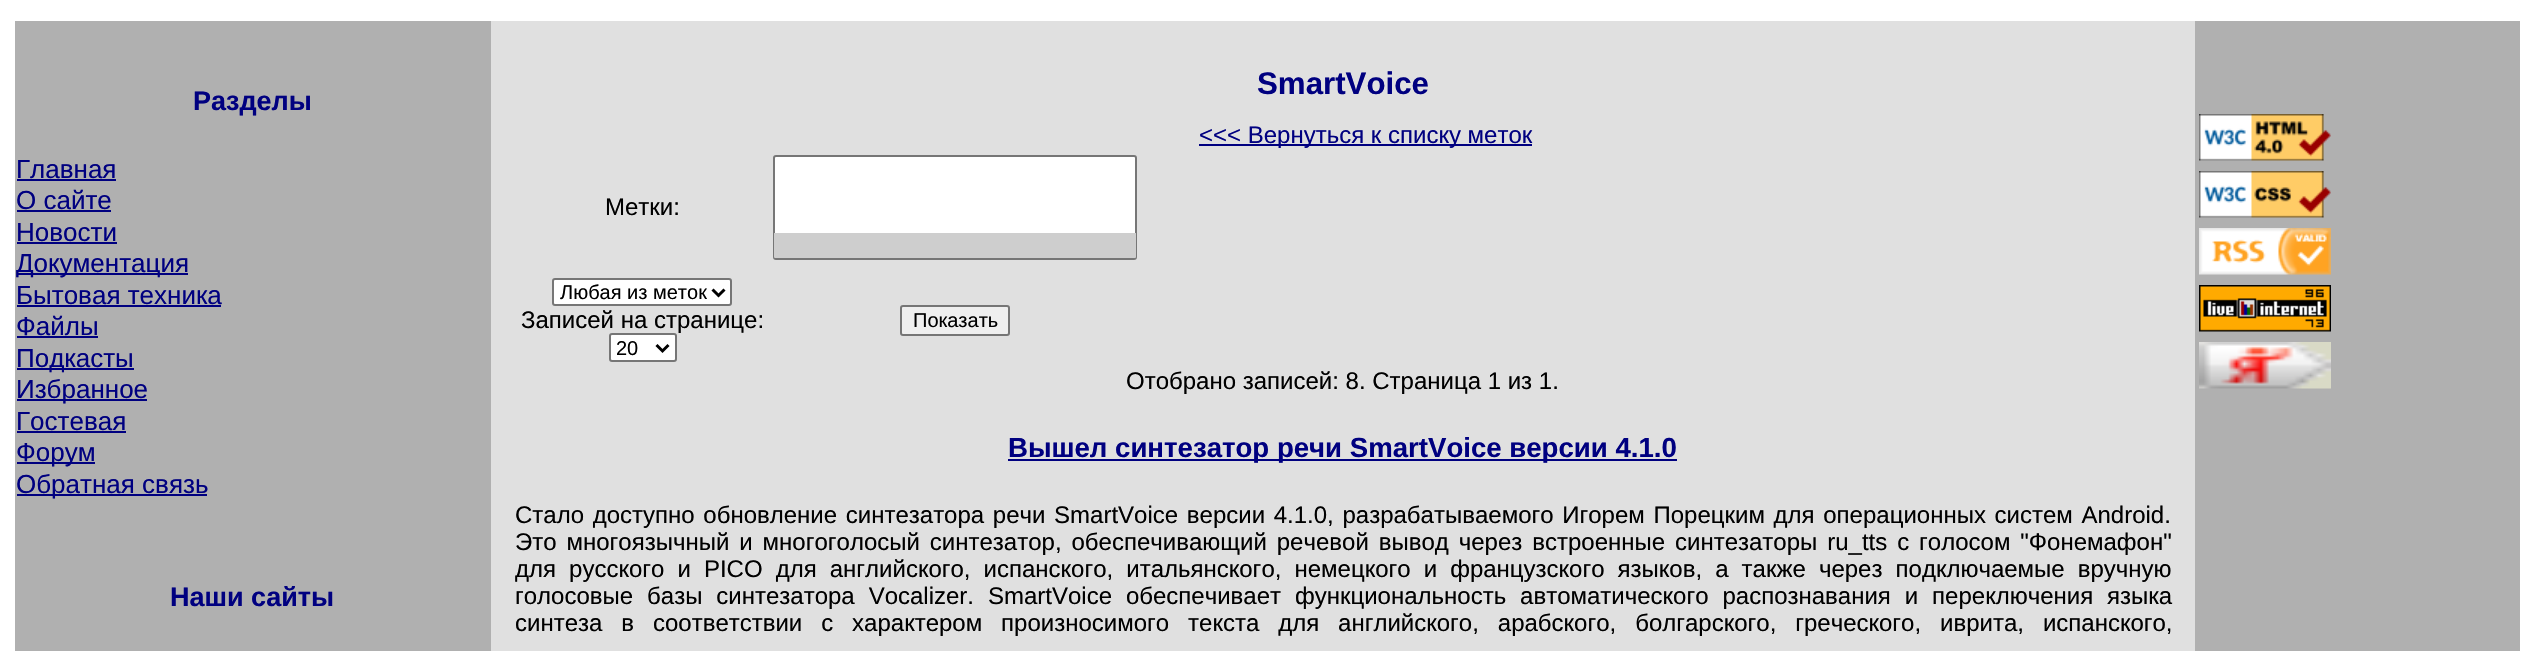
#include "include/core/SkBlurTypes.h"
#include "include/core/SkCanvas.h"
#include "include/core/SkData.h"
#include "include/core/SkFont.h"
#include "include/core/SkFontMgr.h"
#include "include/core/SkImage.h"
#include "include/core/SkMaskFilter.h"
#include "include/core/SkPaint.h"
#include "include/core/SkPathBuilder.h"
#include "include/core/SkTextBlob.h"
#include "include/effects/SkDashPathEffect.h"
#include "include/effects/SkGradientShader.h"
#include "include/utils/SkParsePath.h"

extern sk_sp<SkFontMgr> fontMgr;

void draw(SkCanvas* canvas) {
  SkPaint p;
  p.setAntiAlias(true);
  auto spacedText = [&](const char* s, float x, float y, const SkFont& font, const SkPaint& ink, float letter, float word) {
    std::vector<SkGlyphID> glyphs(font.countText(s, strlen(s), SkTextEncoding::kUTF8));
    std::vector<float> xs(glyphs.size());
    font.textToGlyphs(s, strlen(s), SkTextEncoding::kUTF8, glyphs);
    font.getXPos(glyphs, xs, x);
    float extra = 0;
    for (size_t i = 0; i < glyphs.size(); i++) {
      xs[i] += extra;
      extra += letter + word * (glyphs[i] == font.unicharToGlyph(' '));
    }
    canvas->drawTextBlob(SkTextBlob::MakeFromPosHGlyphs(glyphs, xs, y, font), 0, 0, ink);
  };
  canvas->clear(SK_ColorWHITE);
  p.setColor(SkColorSetRGB(176, 176, 176));
  canvas->drawRect(SkRect::MakeLTRB(15, 21, 491, 651), p);
  p.setColor(SkColorSetRGB(0, 0, 128));
  canvas->drawRect(SkRect::MakeLTRB(17, 179, 116, 181), p);
  canvas->drawRect(SkRect::MakeLTRB(17, 210, 111, 212), p);
  canvas->drawRect(SkRect::MakeLTRB(17, 242, 117, 244), p);
  canvas->drawRect(SkRect::MakeLTRB(17, 273, 188, 275), p);
  canvas->drawRect(SkRect::MakeLTRB(17, 305, 221, 307), p);
  canvas->drawRect(SkRect::MakeLTRB(17, 336, 98, 338), p);
  canvas->drawRect(SkRect::MakeLTRB(17, 368, 134, 370), p);
  canvas->drawRect(SkRect::MakeLTRB(17, 399, 147, 401), p);
  canvas->drawRect(SkRect::MakeLTRB(17, 431, 126, 433), p);
  canvas->drawRect(SkRect::MakeLTRB(17, 462, 95, 464), p);
  canvas->drawRect(SkRect::MakeLTRB(17, 494, 207, 496), p);
  p.setColor(SkColorSetRGB(224, 224, 224));
  canvas->drawRect(SkRect::MakeLTRB(491, 21, 2195, 651), p);
  p.setColor(SkColorSetRGB(0, 0, 128));
  canvas->drawRect(SkRect::MakeLTRB(1199, 144, 1532, 146), p);
  p.setColor(SK_ColorWHITE);
  canvas->drawRoundRect(SkRect::MakeLTRB(774, 156, 1136, 259), 2, 2, p);
  p.setStyle(SkPaint::kStroke_Style);
  p.setStrokeWidth(2);
  p.setColor(SkColorSetRGB(118, 118, 118));
  canvas->drawRoundRect(SkRect::MakeLTRB(774, 156, 1136, 259), 2, 2, p);
  p.setStyle(SkPaint::kFill_Style);
  p.setColor(SkColorSetRGB(206, 206, 206));
  canvas->drawPath(SkPathBuilder().moveTo(774, 233).lineTo(1136, 233).lineTo(1136, 256.5f).cubicTo(1136, 257.5f, 1135.5f, 258, 1134.5f, 258).lineTo(775.5f, 258).cubicTo(774.5f, 258, 774, 257.5f, 774, 256.5f).close().detach(), p);
  p.setColor(SK_ColorWHITE);
  canvas->drawRoundRect(SkRect::MakeLTRB(553, 279, 731, 305), 2, 2, p);
  p.setStyle(SkPaint::kStroke_Style);
  p.setColor(SkColorSetRGB(118, 118, 118));
  canvas->drawRoundRect(SkRect::MakeLTRB(553, 279, 731, 305), 2, 2, p);
  p.setStrokeWidth(3);
  p.setColor(SK_ColorBLACK);
  canvas->drawPath(SkPathBuilder().moveTo(712.5f, 289.5f).lineTo(718.5f, 295.5f).lineTo(724.5f, 289.5f).detach(), p);
  p.setStyle(SkPaint::kFill_Style);
  p.setColor(SK_ColorWHITE);
  canvas->drawRoundRect(SkRect::MakeLTRB(610, 334, 676, 361), 2, 2, p);
  p.setStyle(SkPaint::kStroke_Style);
  p.setStrokeWidth(2);
  p.setColor(SkColorSetRGB(118, 118, 118));
  canvas->drawRoundRect(SkRect::MakeLTRB(610, 334, 676, 361), 2, 2, p);
  p.setStrokeWidth(3);
  p.setColor(SK_ColorBLACK);
  canvas->drawPath(SkPathBuilder().moveTo(656.5f, 345).lineTo(662.5f, 351).lineTo(668.5f, 345).detach(), p);
  p.setStyle(SkPaint::kFill_Style);
  p.setColor(SkColorSetRGB(239, 239, 239));
  canvas->drawRoundRect(SkRect::MakeLTRB(901, 306, 1009, 335), 2, 2, p);
  p.setStyle(SkPaint::kStroke_Style);
  p.setStrokeWidth(2);
  p.setColor(SkColorSetRGB(118, 118, 118));
  canvas->drawRoundRect(SkRect::MakeLTRB(901, 306, 1009, 335), 2, 2, p);
  p.setStyle(SkPaint::kFill_Style);
  p.setColor(SkColorSetRGB(0, 0, 128));
  canvas->drawRect(SkRect::MakeLTRB(1008, 459, 1677, 461), p);
  p.setColor(SkColorSetRGB(176, 176, 176));
  canvas->drawRect(SkRect::MakeLTRB(2195, 21, 2520, 651), p);
  canvas->drawImageRect(SkImages::DeferredFromEncodedData(SkData::MakeFromFileName("images/1.png")), SkRect::MakeLTRB(2199, 114, 2331, 161), SkSamplingOptions());
  canvas->drawImageRect(SkImages::DeferredFromEncodedData(SkData::MakeFromFileName("images/2.png")), SkRect::MakeLTRB(2199, 171, 2331, 218), SkSamplingOptions());
  canvas->drawImageRect(SkImages::DeferredFromEncodedData(SkData::MakeFromFileName("images/3.png")), SkRect::MakeLTRB(2199, 228, 2331, 275), SkSamplingOptions());
  canvas->drawImageRect(SkImages::DeferredFromEncodedData(SkData::MakeFromFileName("images/4.png")), SkRect::MakeLTRB(2199, 285, 2331, 332), SkSamplingOptions());
  canvas->drawImageRect(SkImages::DeferredFromEncodedData(SkData::MakeFromFileName("images/5.png")), SkRect::MakeLTRB(2199, 342, 2331, 389), SkSamplingOptions());
  SkFont font1(fontMgr->matchFamilyStyle("Liberation Sans", SkFontStyle::Bold()), 27);
  font1.setSubpixel(true);
  p.setColor(SkColorSetRGB(0, 0, 128));
  canvas->drawString("Разделы", 193, 110, font1, p);
  SkFont font2(fontMgr->matchFamilyStyle("Liberation Sans", SkFontStyle::Normal()), 26);
  font2.setSubpixel(true);
  canvas->drawString("Главная", 16, 178, font2, p);
  canvas->drawString("О сайте", 16, 209, font2, p);
  canvas->drawString("Новости", 16, 241, font2, p);
  canvas->drawString("Документация", 16, 272, font2, p);
  canvas->drawString("Бытовая техника", 16, 304, font2, p);
  canvas->drawString("Файлы", 16, 335, font2, p);
  canvas->drawString("Подкасты", 16, 367, font2, p);
  canvas->drawString("Избранное", 16, 398, font2, p);
  canvas->drawString("Гостевая", 16, 430, font2, p);
  canvas->drawString("Форум", 16, 461, font2, p);
  canvas->drawString("Обратная связь", 16, 493, font2, p);
  canvas->drawString("Наши сайты", 170, 606, font1, p);
  SkFont font3(fontMgr->matchFamilyStyle("Liberation Sans", SkFontStyle::Bold()), 31.25f);
  font3.setSubpixel(true);
  canvas->drawString("SmartVoice", 1257, 94, font3, p);
  SkFont font4(fontMgr->matchFamilyStyle("Liberation Sans", SkFontStyle::Normal()), 24);
  font4.setSubpixel(true);
  canvas->drawString("<<< Вернуться к списку меток", 1199, 143, font4, p);
  p.setColor(SK_ColorBLACK);
  canvas->drawString("Метки:", 605, 215, font4, p);
  SkFont font5(fontMgr->matchFamilyStyle("Liberation Sans", SkFontStyle::Normal()), 20);
  font5.setSubpixel(true);
  canvas->drawString("Любая из меток", 560, 299, font5, p);
  canvas->drawString("Записей на странице:", 521, 328, font4, p);
  canvas->drawString("20", 616, 355, font5, p);
  canvas->drawString("Показать", 913, 327, font5, p);
  canvas->drawString("Отобрано записей: 8. Страница 1 из 1.", 1126, 389, font4, p);
  SkFont font6(fontMgr->matchFamilyStyle("Liberation Sans", SkFontStyle::Bold()), 27.6f);
  font6.setSubpixel(true);
  p.setColor(SkColorSetRGB(0, 0, 128));
  canvas->drawString("Вышел синтезатор речи SmartVoice версии 4.1.0", 1008, 457, font6, p);
  p.setColor(SK_ColorBLACK);
  spacedText("Стало доступно обновление синтезатора речи SmartVoice версии 4.1.0, разрабатываемого Игорем Порецким для операционных систем Android.", 515, 523, font4, p, 0, 2);
  spacedText("Это многоязычный и многоголосый синтезатор, обеспечивающий речевой вывод через встроенные синтезаторы ru_tts с голосом \"Фонемафон\"", 515, 550, font4, p, 0, 3.25f);
  spacedText("для русского и PICO для английского, испанского, итальянского, немецкого и французского языков, а также через подключаемые вручную", 515, 577, font4, p, 0, 6.4f);
  spacedText("голосовые базы синтезатора Vocalizer. SmartVoice обеспечивает функциональность автоматического распознавания и переключения языка", 515, 604, font4, p, 0, 7.25f);
  spacedText("синтеза в соответствии с характером произносимого текста для английского, арабского, болгарского, греческого, иврита, испанского,", 515, 631, font4, p, 0, 12.25f);
}
